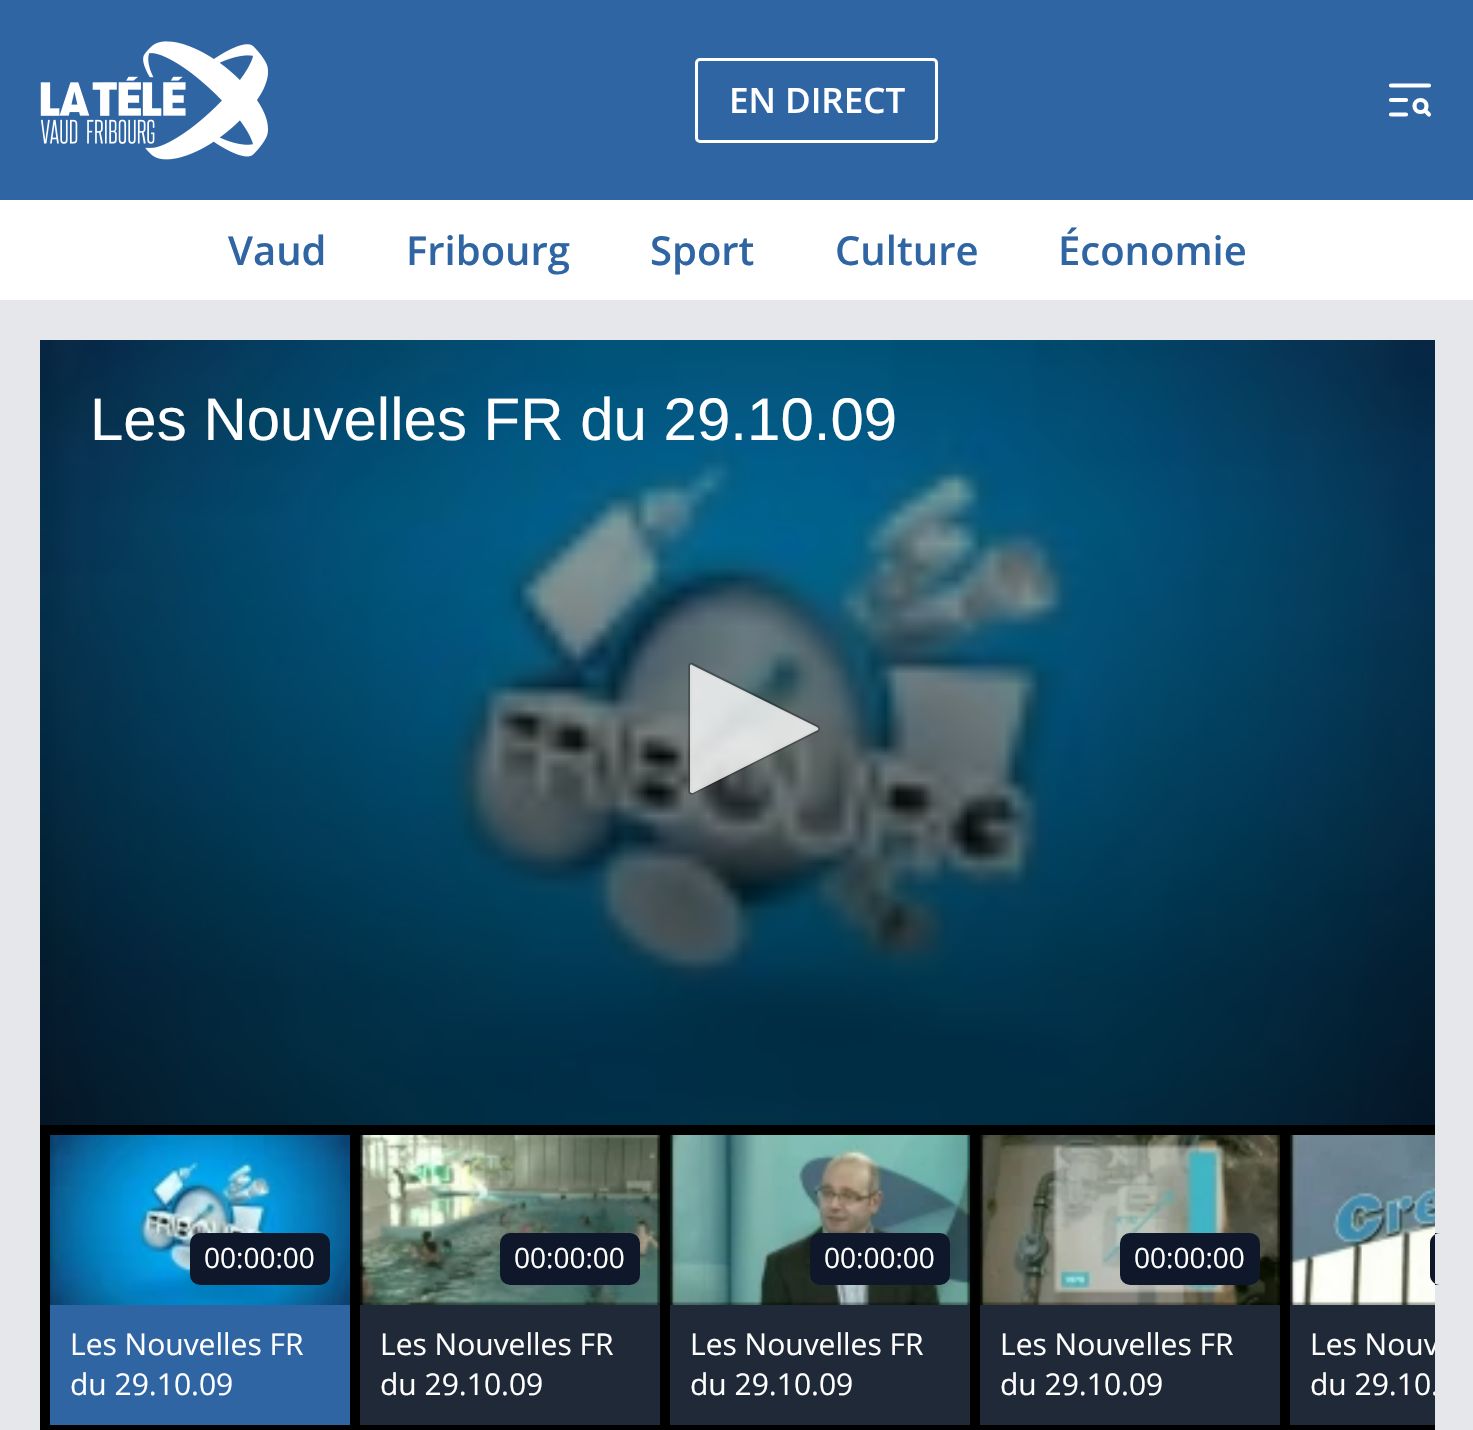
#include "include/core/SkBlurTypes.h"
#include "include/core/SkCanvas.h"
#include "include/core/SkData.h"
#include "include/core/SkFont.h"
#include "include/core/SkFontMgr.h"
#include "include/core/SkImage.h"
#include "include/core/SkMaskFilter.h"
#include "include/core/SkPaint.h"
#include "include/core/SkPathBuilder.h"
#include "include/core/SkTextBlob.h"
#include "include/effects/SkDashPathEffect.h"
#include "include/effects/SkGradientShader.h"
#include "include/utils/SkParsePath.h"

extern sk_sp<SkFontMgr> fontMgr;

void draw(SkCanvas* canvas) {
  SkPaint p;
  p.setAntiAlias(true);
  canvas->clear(SkColorSetRGB(229, 231, 235));
  p.setColor(SkColorSetRGB(47, 101, 163));
  canvas->drawRect(SkRect::MakeLTRB(0, 0, 1473, 200), p);
  canvas->drawImageRect(SkImages::DeferredFromEncodedData(SkData::MakeFromFileName("images/1.png")), SkRect::MakeLTRB(40, 41, 268, 160), SkSamplingOptions());
  p.setStyle(SkPaint::kStroke_Style);
  p.setStrokeWidth(3);
  p.setColor(SK_ColorWHITE);
  canvas->drawRoundRect(SkRect::MakeLTRB(696.5f, 59.5f, 936.5f, 141.5f), 3.5f, 3.5f, p);
  p.setStrokeWidth(4.2f);
  p.setStrokeCap(SkPaint::kRound_Cap);
  p.setStrokeJoin(SkPaint::kRound_Join);
  canvas->drawPath(SkPathBuilder().moveTo(1429, 85.5f).lineTo(1391, 85.5f).moveTo(1406, 100).lineTo(1391, 100).moveTo(1406, 114.5f).lineTo(1391, 114.5f).detach(), p);
  p.setStrokeCap(SkPaint::kButt_Cap);
  p.setStrokeJoin(SkPaint::kMiter_Join);
  canvas->drawCircle(1420.5f, 106, 6, p);
  p.setStrokeCap(SkPaint::kRound_Cap);
  p.setStrokeJoin(SkPaint::kRound_Join);
  canvas->drawPath(SkPathBuilder().moveTo(1429, 114.5f).lineTo(1425, 110.5f).detach(), p);
  p.setStyle(SkPaint::kFill_Style);
  canvas->drawRect(SkRect::MakeLTRB(0, 200, 1473, 300), p);
  canvas->drawImageRect(SkImages::DeferredFromEncodedData(SkData::MakeFromFileName("images/2.png")), SkRect::MakeLTRB(40, 340, 1435, 1125), SkSamplingOptions());
  p.setStyle(SkPaint::kStroke_Style);
  p.setStrokeWidth(3.5f);
  p.setStrokeCap(SkPaint::kButt_Cap);
  p.setStrokeJoin(SkPaint::kMiter_Join);
  p.setColor(SkColorSetARGB(77, 0, 0, 0));
  canvas->drawPath(SkPathBuilder().moveTo(693, 792.5f).cubicTo(692, 793, 690.5f, 793, 690, 792).lineTo(690, 666).cubicTo(690, 665, 691, 664.5f, 692, 664.5f).lineTo(817, 727).cubicTo(818, 728, 818.5f, 729, 817.5f, 730).close().detach(), p);
  p.setStyle(SkPaint::kFill_Style);
  p.setColor(SkColorSetARGB(204, 255, 255, 255));
  canvas->drawPath(SkPathBuilder().moveTo(693, 793).cubicTo(692, 793, 691, 793, 690, 792).lineTo(690, 666).cubicTo(690, 665, 691, 664, 692, 665).lineTo(817, 727).cubicTo(818, 728, 819, 729, 818, 730).close().detach(), p);
  p.setColor(SK_ColorBLACK);
  canvas->drawRect(SkRect::MakeLTRB(40, 1125, 1435, 1430), p);
  p.setColor(SkColorSetRGB(47, 101, 163));
  canvas->drawRect(SkRect::MakeLTRB(50, 1305, 350, 1425), p);
  canvas->drawImageRect(SkImages::DeferredFromEncodedData(SkData::MakeFromFileName("images/3.png")), SkRect::MakeLTRB(50, 1135, 350, 1305), SkSamplingOptions());
  p.setColor(SkColorSetRGB(15, 23, 42));
  canvas->drawRoundRect(SkRect::MakeLTRB(190, 1233, 330, 1285), 10, 10, p);
  p.setColor(SkColorSetRGB(31, 41, 55));
  canvas->drawRect(SkRect::MakeLTRB(360, 1305, 660, 1425), p);
  canvas->drawImageRect(SkImages::DeferredFromEncodedData(SkData::MakeFromFileName("images/4.png")), SkRect::MakeLTRB(360, 1135, 660, 1305), SkSamplingOptions());
  p.setColor(SkColorSetRGB(15, 23, 42));
  canvas->drawRoundRect(SkRect::MakeLTRB(500, 1233, 640, 1285), 10, 10, p);
  p.setColor(SkColorSetRGB(31, 41, 55));
  canvas->drawRect(SkRect::MakeLTRB(670, 1305, 970, 1425), p);
  canvas->drawImageRect(SkImages::DeferredFromEncodedData(SkData::MakeFromFileName("images/5.png")), SkRect::MakeLTRB(670, 1135, 970, 1305), SkSamplingOptions());
  p.setColor(SkColorSetRGB(15, 23, 42));
  canvas->drawRoundRect(SkRect::MakeLTRB(810, 1233, 950, 1285), 10, 10, p);
  p.setColor(SkColorSetRGB(31, 41, 55));
  canvas->drawRect(SkRect::MakeLTRB(980, 1305, 1280, 1425), p);
  canvas->drawImageRect(SkImages::DeferredFromEncodedData(SkData::MakeFromFileName("images/6.png")), SkRect::MakeLTRB(980, 1135, 1280, 1305), SkSamplingOptions());
  p.setColor(SkColorSetRGB(15, 23, 42));
  canvas->drawRoundRect(SkRect::MakeLTRB(1120, 1233, 1260, 1285), 10, 10, p);
  p.setColor(SkColorSetRGB(31, 41, 55));
  canvas->drawRect(SkRect::MakeLTRB(1290, 1305, 1435, 1425), p);
  canvas->drawImageRect(SkImages::DeferredFromEncodedData(SkData::MakeFromFileName("images/7.png")), SkRect::MakeLTRB(1290, 1135, 1435, 1305), SkSamplingOptions());
  p.setColor(SkColorSetRGB(15, 23, 42));
  canvas->drawPath(SkPathBuilder().moveTo(1440, 1233).lineTo(1435, 1233).lineTo(1435, 1285).lineTo(1440, 1285).cubicTo(1434.5f, 1285, 1430, 1280.5f, 1430, 1275).lineTo(1430, 1243).cubicTo(1430, 1237.5f, 1434.5f, 1233, 1440, 1233).close().detach(), p);
  SkFont font1(fontMgr->matchFamilyStyle("Open Sans", SkFontStyle(600, SkFontStyle::kNormal_Width, SkFontStyle::kUpright_Slant)), 35);
  font1.setSubpixel(true);
  p.setColor(SK_ColorWHITE);
  canvas->drawString("EN DIRECT", 729, 113, font1, p);
  SkFont font2(fontMgr->matchFamilyStyle("Open Sans", SkFontStyle(600, SkFontStyle::kNormal_Width, SkFontStyle::kUpright_Slant)), 40);
  font2.setSubpixel(true);
  p.setColor(SkColorSetRGB(47, 101, 163));
  canvas->drawString("Vaud", 228, 265, font2, p);
  canvas->drawString("Fribourg", 406, 265, font2, p);
  canvas->drawString("Sport", 650, 265, font2, p);
  canvas->drawString("Culture", 835, 265, font2, p);
  canvas->drawString("Économie", 1058, 265, font2, p);
  SkFont font3(fontMgr->matchFamilyStyle("Liberation Sans", SkFontStyle::Normal()), 60);
  font3.setSubpixel(true);
  p.setColor(SK_ColorWHITE);
  canvas->drawString("Les Nouvelles FR du 29.10.09", 90, 440, font3, p);
  SkFont font4(fontMgr->matchFamilyStyle("Open Sans", SkFontStyle::Normal()), 28);
  font4.setSubpixel(true);
  canvas->drawString("00:00:00", 204, 1268, font4, p);
  SkFont font5(fontMgr->matchFamilyStyle("Open Sans", SkFontStyle::Normal()), 30);
  font5.setSubpixel(true);
  canvas->drawString("Les Nouvelles FR", 70, 1355, font5, p);
  canvas->drawString("du 29.10.09", 70, 1395, font5, p);
  canvas->drawString("00:00:00", 514, 1268, font4, p);
  canvas->drawString("Les Nouvelles FR", 380, 1355, font5, p);
  canvas->drawString("du 29.10.09", 380, 1395, font5, p);
  canvas->drawString("00:00:00", 824, 1268, font4, p);
  canvas->drawString("Les Nouvelles FR", 690, 1355, font5, p);
  canvas->drawString("du 29.10.09", 690, 1395, font5, p);
  canvas->drawString("00:00:00", 1134, 1268, font4, p);
  canvas->drawString("Les Nouvelles FR", 1000, 1355, font5, p);
  canvas->drawString("du 29.10.09", 1000, 1395, font5, p);
  canvas->save();
  canvas->clipRect(SkRect::MakeLTRB(40, 1125, 1435, 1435));
  canvas->drawString("Les Nouv", 1310, 1355, font5, p);
  canvas->drawString("du 29.10.", 1310, 1395, font5, p);
  canvas->restore();
}
